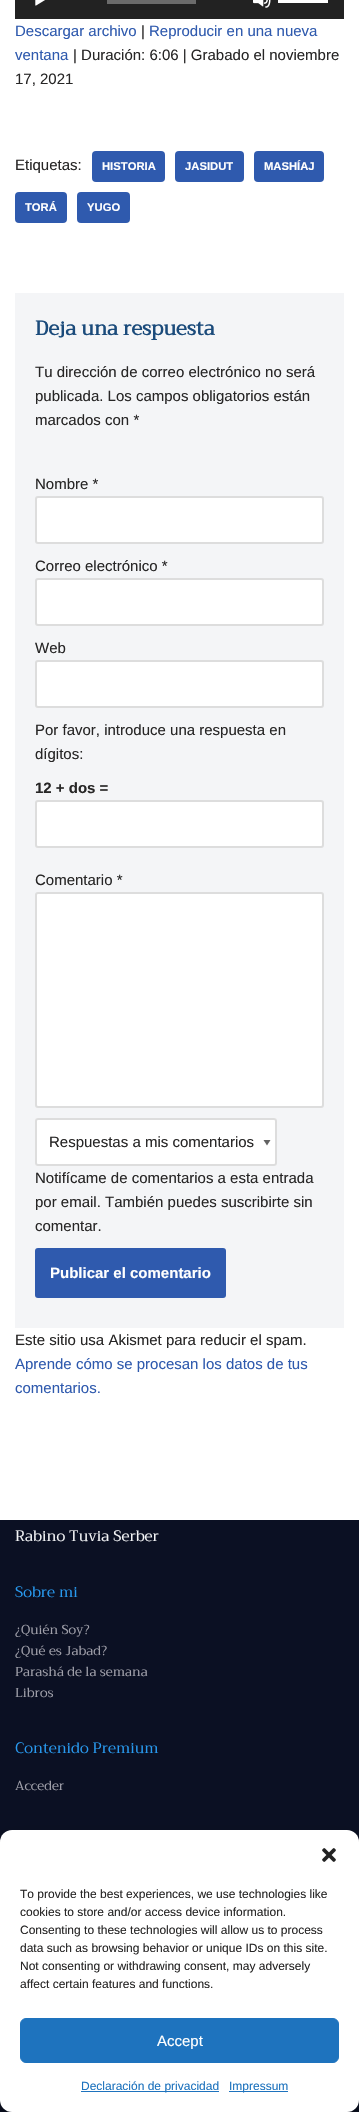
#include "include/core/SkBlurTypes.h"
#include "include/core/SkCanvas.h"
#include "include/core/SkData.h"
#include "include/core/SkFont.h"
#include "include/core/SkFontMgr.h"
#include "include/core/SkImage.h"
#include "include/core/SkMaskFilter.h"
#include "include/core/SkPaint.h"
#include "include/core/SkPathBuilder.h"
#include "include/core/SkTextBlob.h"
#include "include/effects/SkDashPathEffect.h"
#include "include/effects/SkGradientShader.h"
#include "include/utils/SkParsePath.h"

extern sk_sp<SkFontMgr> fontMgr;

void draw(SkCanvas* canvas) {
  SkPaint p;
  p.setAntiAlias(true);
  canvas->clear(SK_ColorWHITE);
  p.setColor(SkColorSetRGB(34, 34, 34));
  canvas->drawRect(SkRect::MakeLTRB(15, 0, 344, 19), p);
  canvas->drawImageRect(SkImages::DeferredFromEncodedData(SkData::MakeFromFileName("images/1.png")), SkRect::MakeLTRB(35, 0, 45, 6), SkSamplingOptions());
  p.setColor(SkColorSetRGB(107, 107, 107));
  canvas->drawRect(SkRect::MakeLTRB(107, 0, 196, 4), p);
  canvas->drawImageRect(SkImages::DeferredFromEncodedData(SkData::MakeFromFileName("images/2.png")), SkRect::MakeLTRB(253, 0, 271, 8), SkSamplingOptions());
  p.setColor(SK_ColorWHITE);
  canvas->drawRect(SkRect::MakeLTRB(278, 0, 328, 3), p);
  p.setColor(SkColorSetRGB(47, 90, 174));
  canvas->drawRoundRect(SkRect::MakeLTRB(92, 151, 165, 182), 4, 4, p);
  canvas->drawRoundRect(SkRect::MakeLTRB(175, 151, 244, 182), 4, 4, p);
  canvas->drawRoundRect(SkRect::MakeLTRB(254, 151, 324, 182), 4, 4, p);
  canvas->drawRoundRect(SkRect::MakeLTRB(15, 192, 67, 223), 4, 4, p);
  canvas->drawRoundRect(SkRect::MakeLTRB(77, 192, 130, 223), 4, 4, p);
  p.setColor(SkColorSetRGB(244, 245, 247));
  canvas->drawRect(SkRect::MakeLTRB(15, 293, 344, 1328), p);
  p.setColor(SK_ColorWHITE);
  canvas->drawRoundRect(SkRect::MakeLTRB(36, 497, 323, 543), 2, 2, p);
  p.setStyle(SkPaint::kStroke_Style);
  p.setStrokeWidth(2);
  p.setColor(SkColorSetRGB(221, 221, 221));
  canvas->drawRoundRect(SkRect::MakeLTRB(36, 497, 323, 543), 2, 2, p);
  p.setStyle(SkPaint::kFill_Style);
  p.setColor(SK_ColorWHITE);
  canvas->drawRoundRect(SkRect::MakeLTRB(36, 579, 323, 625), 2, 2, p);
  p.setStyle(SkPaint::kStroke_Style);
  p.setColor(SkColorSetRGB(221, 221, 221));
  canvas->drawRoundRect(SkRect::MakeLTRB(36, 579, 323, 625), 2, 2, p);
  p.setStyle(SkPaint::kFill_Style);
  p.setColor(SK_ColorWHITE);
  canvas->drawRoundRect(SkRect::MakeLTRB(36, 661, 323, 707), 2, 2, p);
  p.setStyle(SkPaint::kStroke_Style);
  p.setColor(SkColorSetRGB(221, 221, 221));
  canvas->drawRoundRect(SkRect::MakeLTRB(36, 661, 323, 707), 2, 2, p);
  p.setStyle(SkPaint::kFill_Style);
  p.setColor(SK_ColorWHITE);
  canvas->drawRoundRect(SkRect::MakeLTRB(36, 801, 323, 847), 2, 2, p);
  p.setStyle(SkPaint::kStroke_Style);
  p.setColor(SkColorSetRGB(221, 221, 221));
  canvas->drawRoundRect(SkRect::MakeLTRB(36, 801, 323, 847), 2, 2, p);
  p.setStyle(SkPaint::kFill_Style);
  p.setColor(SK_ColorWHITE);
  canvas->drawRoundRect(SkRect::MakeLTRB(36, 893, 323, 1107), 2, 2, p);
  p.setStyle(SkPaint::kStroke_Style);
  p.setColor(SkColorSetRGB(221, 221, 221));
  canvas->drawRoundRect(SkRect::MakeLTRB(36, 893, 323, 1107), 2, 2, p);
  p.setStyle(SkPaint::kFill_Style);
  p.setColor(SK_ColorWHITE);
  canvas->drawRoundRect(SkRect::MakeLTRB(35, 1118, 277, 1166), 3, 3, p);
  p.setColor(SkColorSetRGB(98, 98, 98));
  canvas->drawPath(SkPathBuilder().moveTo(270.5f, 1140).lineTo(267, 1145.5f).lineTo(263.5f, 1140).close().detach(), p);
  p.setStyle(SkPaint::kStroke_Style);
  p.setColor(SkColorSetRGB(221, 221, 221));
  canvas->drawRoundRect(SkRect::MakeLTRB(36, 1119, 276, 1165), 2, 2, p);
  p.setStyle(SkPaint::kFill_Style);
  p.setColor(SkColorSetRGB(47, 90, 174));
  canvas->drawRoundRect(SkRect::MakeLTRB(35, 1248, 226, 1298), 3, 3, p);
  p.setColor(SkColorSetRGB(11, 16, 35));
  canvas->drawRect(SkRect::MakeLTRB(0, 1520, 359, 1842), p);
  canvas->drawRect(SkRect::MakeLTRB(0, 2100, 359, 2112), p);
  p.setColor(SkColorSetARGB(59, 0, 0, 0));
  p.setMaskFilter(SkMaskFilter::MakeBlur(kNormal_SkBlurStyle, 3));
  canvas->drawRoundRect(SkRect::MakeLTRB(0, 1836, 359, 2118), 12, 12, p);
  p.setMaskFilter(nullptr);
  p.setColor(SkColorSetARGB(48, 0, 0, 0));
  p.setMaskFilter(SkMaskFilter::MakeBlur(kNormal_SkBlurStyle, 10));
  canvas->drawRoundRect(SkRect::MakeLTRB(0, 1840, 359, 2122), 12, 12, p);
  p.setMaskFilter(nullptr);
  p.setColor(SK_ColorWHITE);
  canvas->drawRoundRect(SkRect::MakeLTRB(0, 1830, 359, 2112), 12, 12, p);
  canvas->drawImageRect(SkImages::DeferredFromEncodedData(SkData::MakeFromFileName("images/3.png")), SkRect::MakeLTRB(322, 1848, 336, 1862), SkSamplingOptions());
  p.setColor(SkColorSetRGB(30, 115, 190));
  canvas->drawRoundRect(SkRect::MakeLTRB(20.5f, 2018.5f, 338.5f, 2062.5f), 5.5f, 5.5f, p);
  p.setStyle(SkPaint::kStroke_Style);
  p.setStrokeWidth(1);
  canvas->drawRoundRect(SkRect::MakeLTRB(20.5f, 2018.5f, 338.5f, 2062.5f), 5.5f, 5.5f, p);
  p.setStyle(SkPaint::kFill_Style);
  canvas->drawRect(SkRect::MakeLTRB(81, 2091, 219, 2092), p);
  canvas->drawRect(SkRect::MakeLTRB(229, 2091, 288, 2092), p);
  SkFont font1(fontMgr->matchFamilyStyle("Liberation Sans", SkFontStyle::Normal()), 15);
  font1.setSubpixel(true);
  p.setColor(SkColorSetRGB(47, 90, 174));
  canvas->drawString("Descargar archivo", 15, 36, font1, p);
  p.setColor(SkColorSetRGB(39, 38, 38));
  canvas->drawString("|", 141, 36, font1, p);
  p.setColor(SkColorSetRGB(47, 90, 174));
  canvas->drawString("Reproducir en una nueva", 149, 36, font1, p);
  canvas->drawString("ventana", 15, 60, font1, p);
  p.setColor(SkColorSetRGB(39, 38, 38));
  canvas->drawString("| Duración: 6:06 | Grabado el noviembre", 73, 60, font1, p);
  canvas->drawString("17, 2021", 15, 84, font1, p);
  canvas->drawString("Etiquetas:", 15, 170, font1, p);
  SkFont font2(fontMgr->matchFamilyStyle("Liberation Sans", SkFontStyle::Bold()), 11.25f);
  font2.setSubpixel(true);
  p.setColor(SK_ColorWHITE);
  canvas->drawString("HISTORIA", 102, 170, font2, p);
  canvas->drawString("JASIDUT", 185, 170, font2, p);
  canvas->drawString("MASHÍAJ", 264, 170, font2, p);
  canvas->drawString("TORÁ", 25, 211, font2, p);
  canvas->drawString("YUGO", 87, 211, font2, p);
  SkFont font3(fontMgr->matchFamilyStyle("Trirong", SkFontStyle::Bold()), 20);
  font3.setSubpixel(true);
  p.setColor(SkColorSetRGB(27, 75, 123));
  canvas->drawString("Deja una respuesta", 35, 335, font3, p);
  p.setColor(SkColorSetRGB(39, 38, 38));
  canvas->drawString("Tu dirección de correo electrónico no será", 35, 377, font1, p);
  canvas->drawString("publicada. Los campos obligatorios están", 35, 401, font1, p);
  canvas->drawString("marcados con *", 35, 425, font1, p);
  canvas->drawString("Nombre *", 35, 489, font1, p);
  canvas->drawString("Correo electrónico *", 35, 571, font1, p);
  canvas->drawString("Web", 35, 653, font1, p);
  canvas->drawString("Por favor, introduce una respuesta en", 35, 735, font1, p);
  canvas->drawString("dígitos:", 35, 759, font1, p);
  SkFont font4(fontMgr->matchFamilyStyle("Liberation Sans", SkFontStyle::Bold()), 15);
  font4.setSubpixel(true);
  canvas->drawString("12 + dos =", 35, 793, font4, p);
  canvas->drawString("Comentario *", 35, 885, font1, p);
  canvas->drawString("Respuestas a mis comentarios", 49, 1147, font1, p);
  canvas->drawString("Notifícame de comentarios a esta entrada", 35, 1183, font1, p);
  canvas->drawString("por email. También puedes suscribirte sin", 35, 1207, font1, p);
  canvas->drawString("comentar.", 35, 1231, font1, p);
  p.setColor(SK_ColorWHITE);
  canvas->drawString("Publicar el comentario", 50, 1278, font4, p);
  p.setColor(SkColorSetRGB(39, 38, 38));
  canvas->drawString("Este sitio usa Akismet para reducir el spam.", 15, 1345, font1, p);
  p.setColor(SkColorSetRGB(47, 90, 174));
  canvas->drawString("Aprende cómo se procesan los datos de tus", 15, 1369, font1, p);
  canvas->drawString("comentarios.", 15, 1393, font1, p);
  SkFont font5(fontMgr->matchFamilyStyle("Trirong", SkFontStyle::Normal()), 15);
  font5.setSubpixel(true);
  p.setColor(SkColorSetRGB(244, 245, 247));
  canvas->drawString("Rabino Tuvia Serber", 15, 1541, font5, p);
  p.setColor(SkColorSetRGB(40, 154, 240));
  canvas->drawString("Sobre mi", 15, 1597, font5, p);
  SkFont font6(fontMgr->matchFamilyStyle("Trirong", SkFontStyle::Normal()), 13);
  font6.setSubpixel(true);
  p.setColor(SkColorSetRGB(160, 160, 170));
  canvas->drawString("¿Quién Soy?", 15, 1634, font6, p);
  canvas->drawString("¿Qué es Jabad?", 15, 1655, font6, p);
  canvas->drawString("Parashá de la semana", 15, 1676, font6, p);
  canvas->drawString("Libros", 15, 1697, font6, p);
  p.setColor(SkColorSetRGB(40, 154, 240));
  canvas->drawString("Contenido Premium", 15, 1753, font5, p);
  p.setColor(SkColorSetRGB(160, 160, 170));
  canvas->drawString("Acceder", 15, 1790, font6, p);
  SkFont font7(fontMgr->matchFamilyStyle("Liberation Sans", SkFontStyle::Normal()), 12);
  font7.setSubpixel(true);
  p.setColor(SkColorSetRGB(39, 38, 38));
  canvas->drawString("To provide the best experiences, we use technologies like", 20, 1898, font7, p);
  canvas->drawString("cookies to store and/or access device information.", 20, 1916, font7, p);
  canvas->drawString("Consenting to these technologies will allow us to process", 20, 1934, font7, p);
  canvas->drawString("data such as browsing behavior or unique IDs on this site.", 20, 1952, font7, p);
  canvas->drawString("Not consenting or withdrawing consent, may adversely", 20, 1970, font7, p);
  canvas->drawString("affect certain features and functions.", 20, 1988, font7, p);
  p.setColor(SK_ColorWHITE);
  canvas->drawString("Accept", 157, 2046, font1, p);
  p.setColor(SkColorSetRGB(30, 115, 190));
  canvas->drawString("Declaración de privacidad", 81, 2090, font7, p);
  canvas->drawString("Impressum", 229, 2090, font7, p);
}
